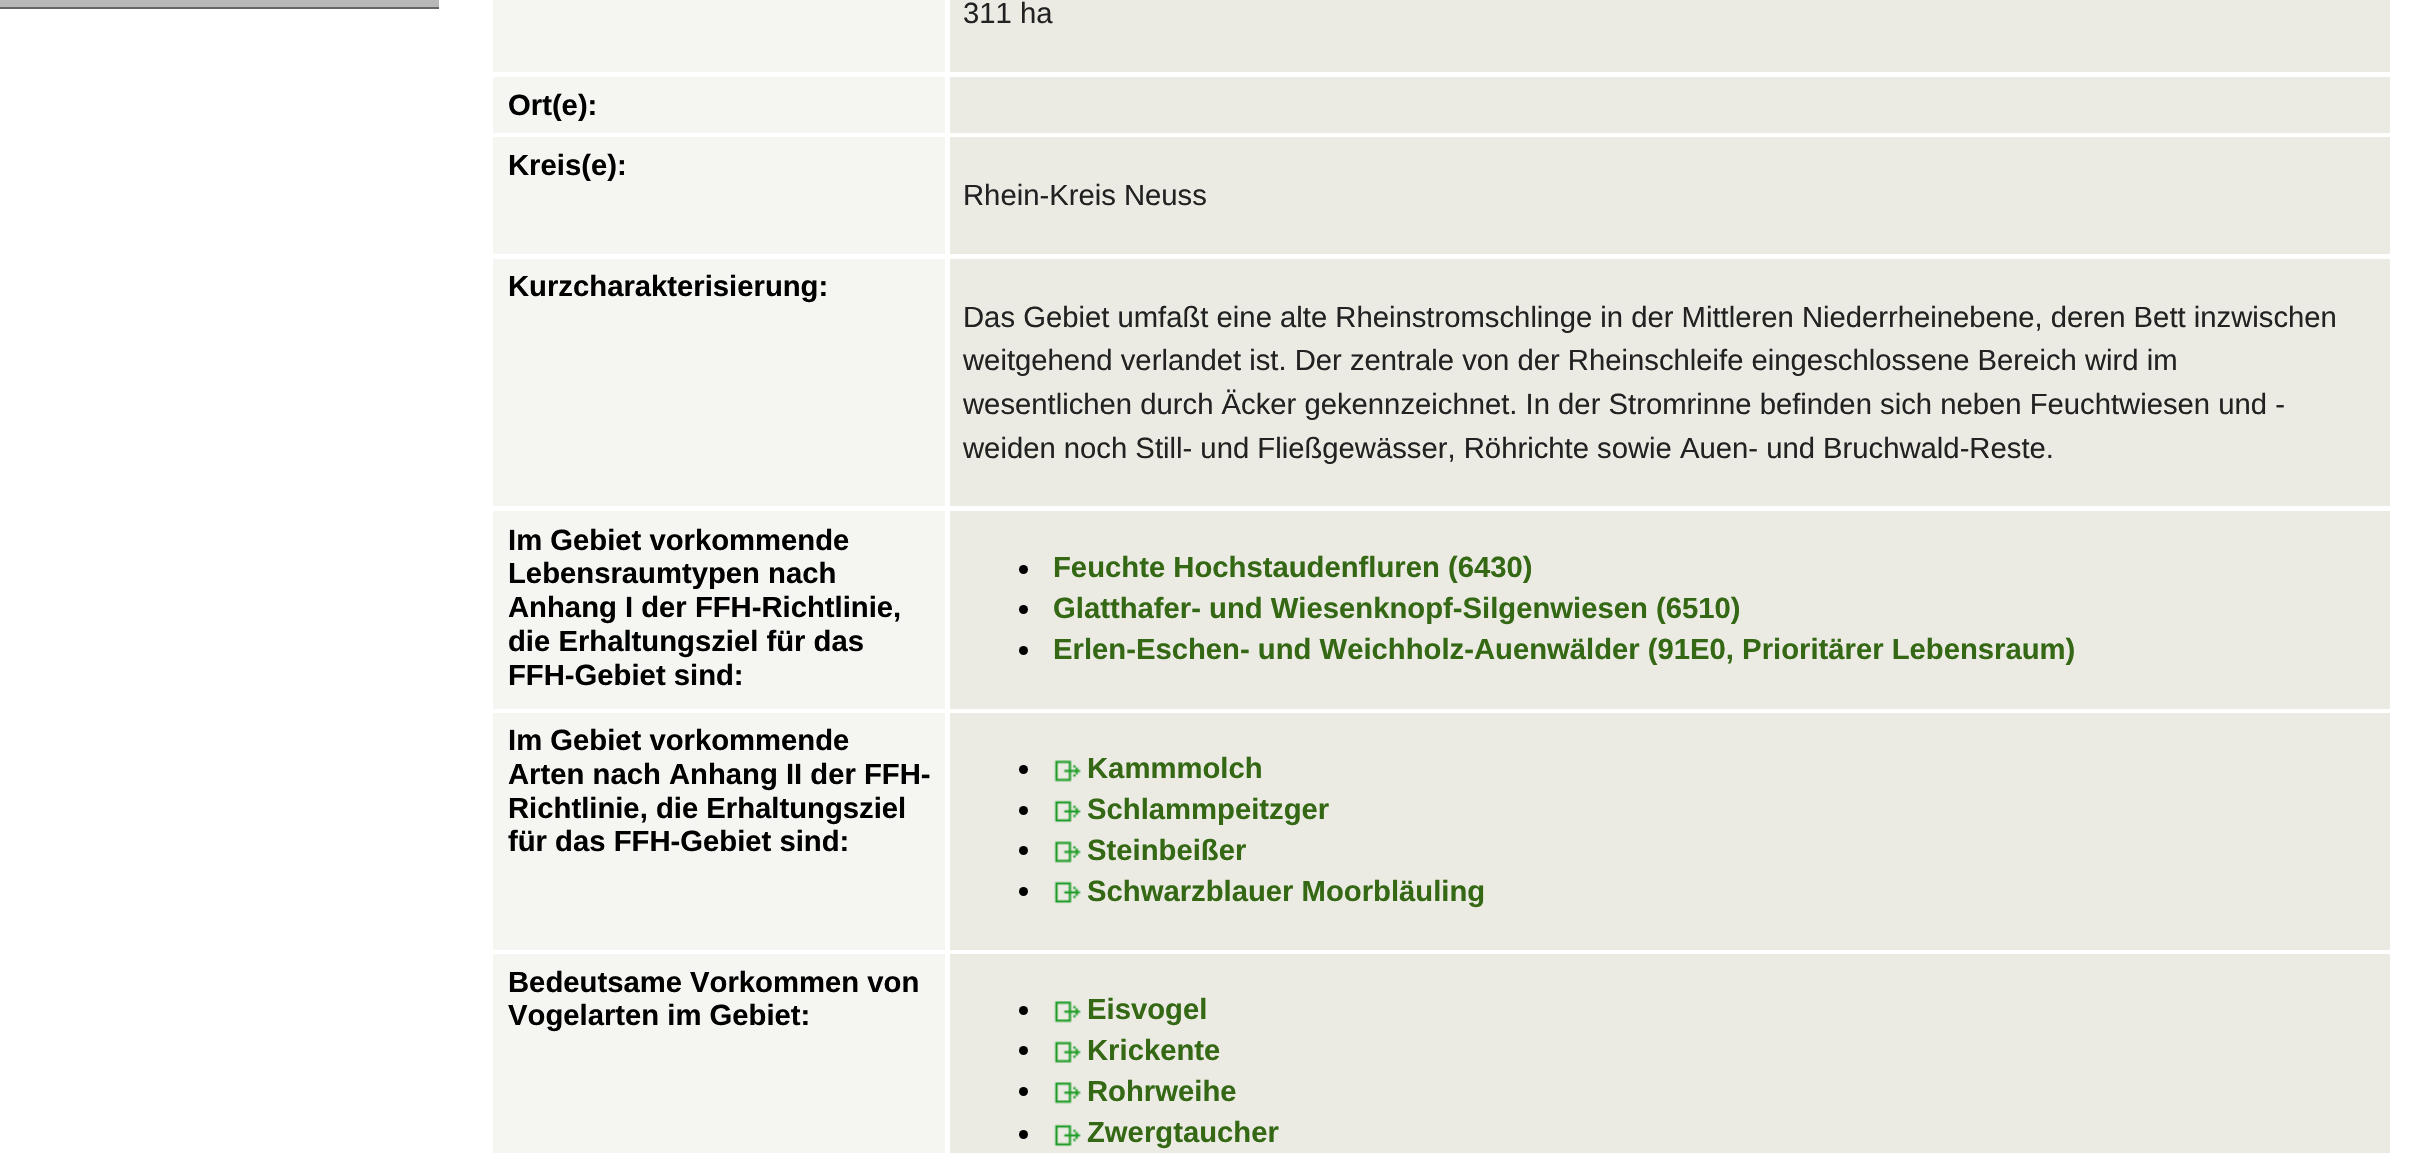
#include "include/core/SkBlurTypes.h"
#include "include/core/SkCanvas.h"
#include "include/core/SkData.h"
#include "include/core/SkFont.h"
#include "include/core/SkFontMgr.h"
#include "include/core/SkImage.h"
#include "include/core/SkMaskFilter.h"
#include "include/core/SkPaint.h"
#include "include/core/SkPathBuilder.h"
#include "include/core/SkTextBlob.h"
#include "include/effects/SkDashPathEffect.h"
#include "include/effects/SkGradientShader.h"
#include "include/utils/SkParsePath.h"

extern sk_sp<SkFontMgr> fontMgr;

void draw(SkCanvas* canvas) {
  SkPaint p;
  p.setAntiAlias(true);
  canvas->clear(SK_ColorWHITE);
  p.setColor(SkColorSetRGB(184, 184, 184));
  canvas->drawRect(SkRect::MakeLTRB(0, 0, 439, 7), p);
  p.setColor(SkColorSetRGB(102, 102, 102));
  canvas->drawRect(SkRect::MakeLTRB(0, 7, 439, 9), p);
  p.setColor(SkColorSetRGB(245, 245, 241));
  canvas->drawRect(SkRect::MakeLTRB(493, 0, 945, 72), p);
  p.setColor(SkColorSetRGB(235, 235, 227));
  canvas->drawRect(SkRect::MakeLTRB(950, 0, 2390, 72), p);
  p.setColor(SkColorSetRGB(245, 245, 241));
  canvas->drawRect(SkRect::MakeLTRB(493, 77, 945, 133), p);
  p.setColor(SkColorSetRGB(235, 235, 227));
  canvas->drawRect(SkRect::MakeLTRB(950, 77, 2390, 133), p);
  p.setColor(SkColorSetRGB(245, 245, 241));
  canvas->drawRect(SkRect::MakeLTRB(493, 137, 945, 254), p);
  p.setColor(SkColorSetRGB(235, 235, 227));
  canvas->drawRect(SkRect::MakeLTRB(950, 137, 2390, 254), p);
  p.setColor(SkColorSetRGB(245, 245, 241));
  canvas->drawRect(SkRect::MakeLTRB(493, 259, 945, 506), p);
  p.setColor(SkColorSetRGB(235, 235, 227));
  canvas->drawRect(SkRect::MakeLTRB(950, 259, 2390, 506), p);
  p.setColor(SkColorSetRGB(245, 245, 241));
  canvas->drawRect(SkRect::MakeLTRB(493, 511, 945, 709), p);
  p.setColor(SkColorSetRGB(235, 235, 227));
  canvas->drawRect(SkRect::MakeLTRB(950, 511, 2390, 709), p);
  p.setColor(SK_ColorBLACK);
  canvas->drawCircle(1023.5f, 569.5f, 4.5f, p);
  canvas->drawCircle(1023.5f, 609.5f, 4.5f, p);
  canvas->drawCircle(1023.5f, 650.5f, 4.5f, p);
  p.setColor(SkColorSetRGB(245, 245, 241));
  canvas->drawRect(SkRect::MakeLTRB(493, 713, 945, 950), p);
  p.setColor(SkColorSetRGB(235, 235, 227));
  canvas->drawRect(SkRect::MakeLTRB(950, 713, 2390, 950), p);
  p.setColor(SK_ColorBLACK);
  canvas->drawCircle(1023.5f, 769.5f, 4.5f, p);
  canvas->drawImageRect(SkImages::DeferredFromEncodedData(SkData::MakeFromFileName("images/1.png")), SkRect::MakeLTRB(1054, 760, 1081, 782), SkSamplingOptions());
  canvas->drawCircle(1023.5f, 810.5f, 4.5f, p);
  canvas->drawImageRect(SkImages::DeferredFromEncodedData(SkData::MakeFromFileName("images/2.png")), SkRect::MakeLTRB(1054, 800, 1081, 823), SkSamplingOptions());
  canvas->drawCircle(1023.5f, 850.5f, 4.5f, p);
  canvas->drawImageRect(SkImages::DeferredFromEncodedData(SkData::MakeFromFileName("images/1.png")), SkRect::MakeLTRB(1054, 841, 1081, 863), SkSamplingOptions());
  canvas->drawCircle(1023.5f, 891.5f, 4.5f, p);
  canvas->drawImageRect(SkImages::DeferredFromEncodedData(SkData::MakeFromFileName("images/2.png")), SkRect::MakeLTRB(1054, 881, 1081, 904), SkSamplingOptions());
  p.setColor(SkColorSetRGB(245, 245, 241));
  canvas->drawRect(SkRect::MakeLTRB(493, 954, 945, 1153), p);
  p.setColor(SkColorSetRGB(235, 235, 227));
  canvas->drawRect(SkRect::MakeLTRB(950, 954, 2390, 1153), p);
  p.setColor(SK_ColorBLACK);
  canvas->drawCircle(1023.5f, 1010.5f, 4.5f, p);
  canvas->drawImageRect(SkImages::DeferredFromEncodedData(SkData::MakeFromFileName("images/3.png")), SkRect::MakeLTRB(1054, 1001, 1081, 1023), SkSamplingOptions());
  canvas->drawCircle(1023.5f, 1050.5f, 4.5f, p);
  canvas->drawImageRect(SkImages::DeferredFromEncodedData(SkData::MakeFromFileName("images/4.png")), SkRect::MakeLTRB(1054, 1041, 1081, 1063), SkSamplingOptions());
  canvas->drawCircle(1023.5f, 1091.5f, 4.5f, p);
  canvas->drawImageRect(SkImages::DeferredFromEncodedData(SkData::MakeFromFileName("images/3.png")), SkRect::MakeLTRB(1054, 1082, 1081, 1104), SkSamplingOptions());
  canvas->drawCircle(1023.5f, 1134.5f, 4.5f, p);
  canvas->drawImageRect(SkImages::DeferredFromEncodedData(SkData::MakeFromFileName("images/2.png")), SkRect::MakeLTRB(1054, 1124, 1081, 1147), SkSamplingOptions());
  SkFont font1(fontMgr->matchFamilyStyle("Liberation Sans", SkFontStyle::Normal()), 29.25f);
  font1.setSubpixel(true);
  p.setColor(SkColorSetRGB(34, 34, 34));
  canvas->drawString("311 ha", 963, 23, font1, p);
  SkFont font2(fontMgr->matchFamilyStyle("Liberation Sans", SkFontStyle::Bold()), 29.25f);
  font2.setSubpixel(true);
  p.setColor(SK_ColorBLACK);
  canvas->drawString("Ort(e):", 508, 115, font2, p);
  canvas->drawString("Kreis(e):", 508, 175, font2, p);
  p.setColor(SkColorSetRGB(34, 34, 34));
  canvas->drawString("Rhein-Kreis Neuss", 963, 205, font1, p);
  p.setColor(SK_ColorBLACK);
  canvas->drawString("Kurzcharakterisierung:", 508, 296, font2, p);
  p.setColor(SkColorSetRGB(34, 34, 34));
  canvas->drawString("Das Gebiet umfaßt eine alte Rheinstromschlinge in der Mittleren Niederrheinebene, deren Bett inzwischen", 963, 327, font1, p);
  canvas->drawString("weitgehend verlandet ist. Der zentrale von der Rheinschleife eingeschlossene Bereich wird im", 963, 370, font1, p);
  canvas->drawString("wesentlichen durch Äcker gekennzeichnet. In der Stromrinne befinden sich neben Feuchtwiesen und -", 963, 414, font1, p);
  canvas->drawString("weiden noch Still- und Fließgewässer, Röhrichte sowie Auen- und Bruchwald-Reste.", 963, 458, font1, p);
  p.setColor(SK_ColorBLACK);
  canvas->drawString("Im Gebiet vorkommende", 508, 550, font2, p);
  canvas->drawString("Lebensraumtypen nach", 508, 583, font2, p);
  canvas->drawString("Anhang I der FFH-Richtlinie,", 508, 617, font2, p);
  canvas->drawString("die Erhaltungsziel für das", 508, 651, font2, p);
  canvas->drawString("FFH-Gebiet sind:", 508, 685, font2, p);
  p.setColor(SkColorSetRGB(52, 104, 20));
  canvas->drawString("Feuchte Hochstaudenfluren (6430)", 1053, 577, font2, p);
  canvas->drawString("Glatthafer- und Wiesenknopf-Silgenwiesen (6510)", 1053, 618, font2, p);
  canvas->drawString("Erlen-Eschen- und Weichholz-Auenwälder (91E0, Prioritärer Lebensraum)", 1053, 659, font2, p);
  p.setColor(SK_ColorBLACK);
  canvas->drawString("Im Gebiet vorkommende", 508, 750, font2, p);
  canvas->drawString("Arten nach Anhang II der FFH-", 508, 784, font2, p);
  canvas->drawString("Richtlinie, die Erhaltungsziel", 508, 818, font2, p);
  canvas->drawString("für das FFH-Gebiet sind:", 508, 851, font2, p);
  p.setColor(SkColorSetRGB(52, 104, 20));
  canvas->drawString("Kammmolch", 1087, 778, font2, p);
  canvas->drawString("Schlammpeitzger", 1087, 819, font2, p);
  canvas->drawString("Steinbeißer", 1087, 860, font2, p);
  canvas->drawString("Schwarzblauer Moorbläuling", 1087, 901, font2, p);
  p.setColor(SK_ColorBLACK);
  canvas->drawString("Bedeutsame Vorkommen von", 508, 992, font2, p);
  canvas->drawString("Vogelarten im Gebiet:", 508, 1025, font2, p);
  p.setColor(SkColorSetRGB(52, 104, 20));
  canvas->drawString("Eisvogel", 1087, 1019, font2, p);
  canvas->drawString("Krickente", 1087, 1060, font2, p);
  canvas->drawString("Rohrweihe", 1087, 1101, font2, p);
  canvas->drawString("Zwergtaucher", 1087, 1142, font2, p);
}
